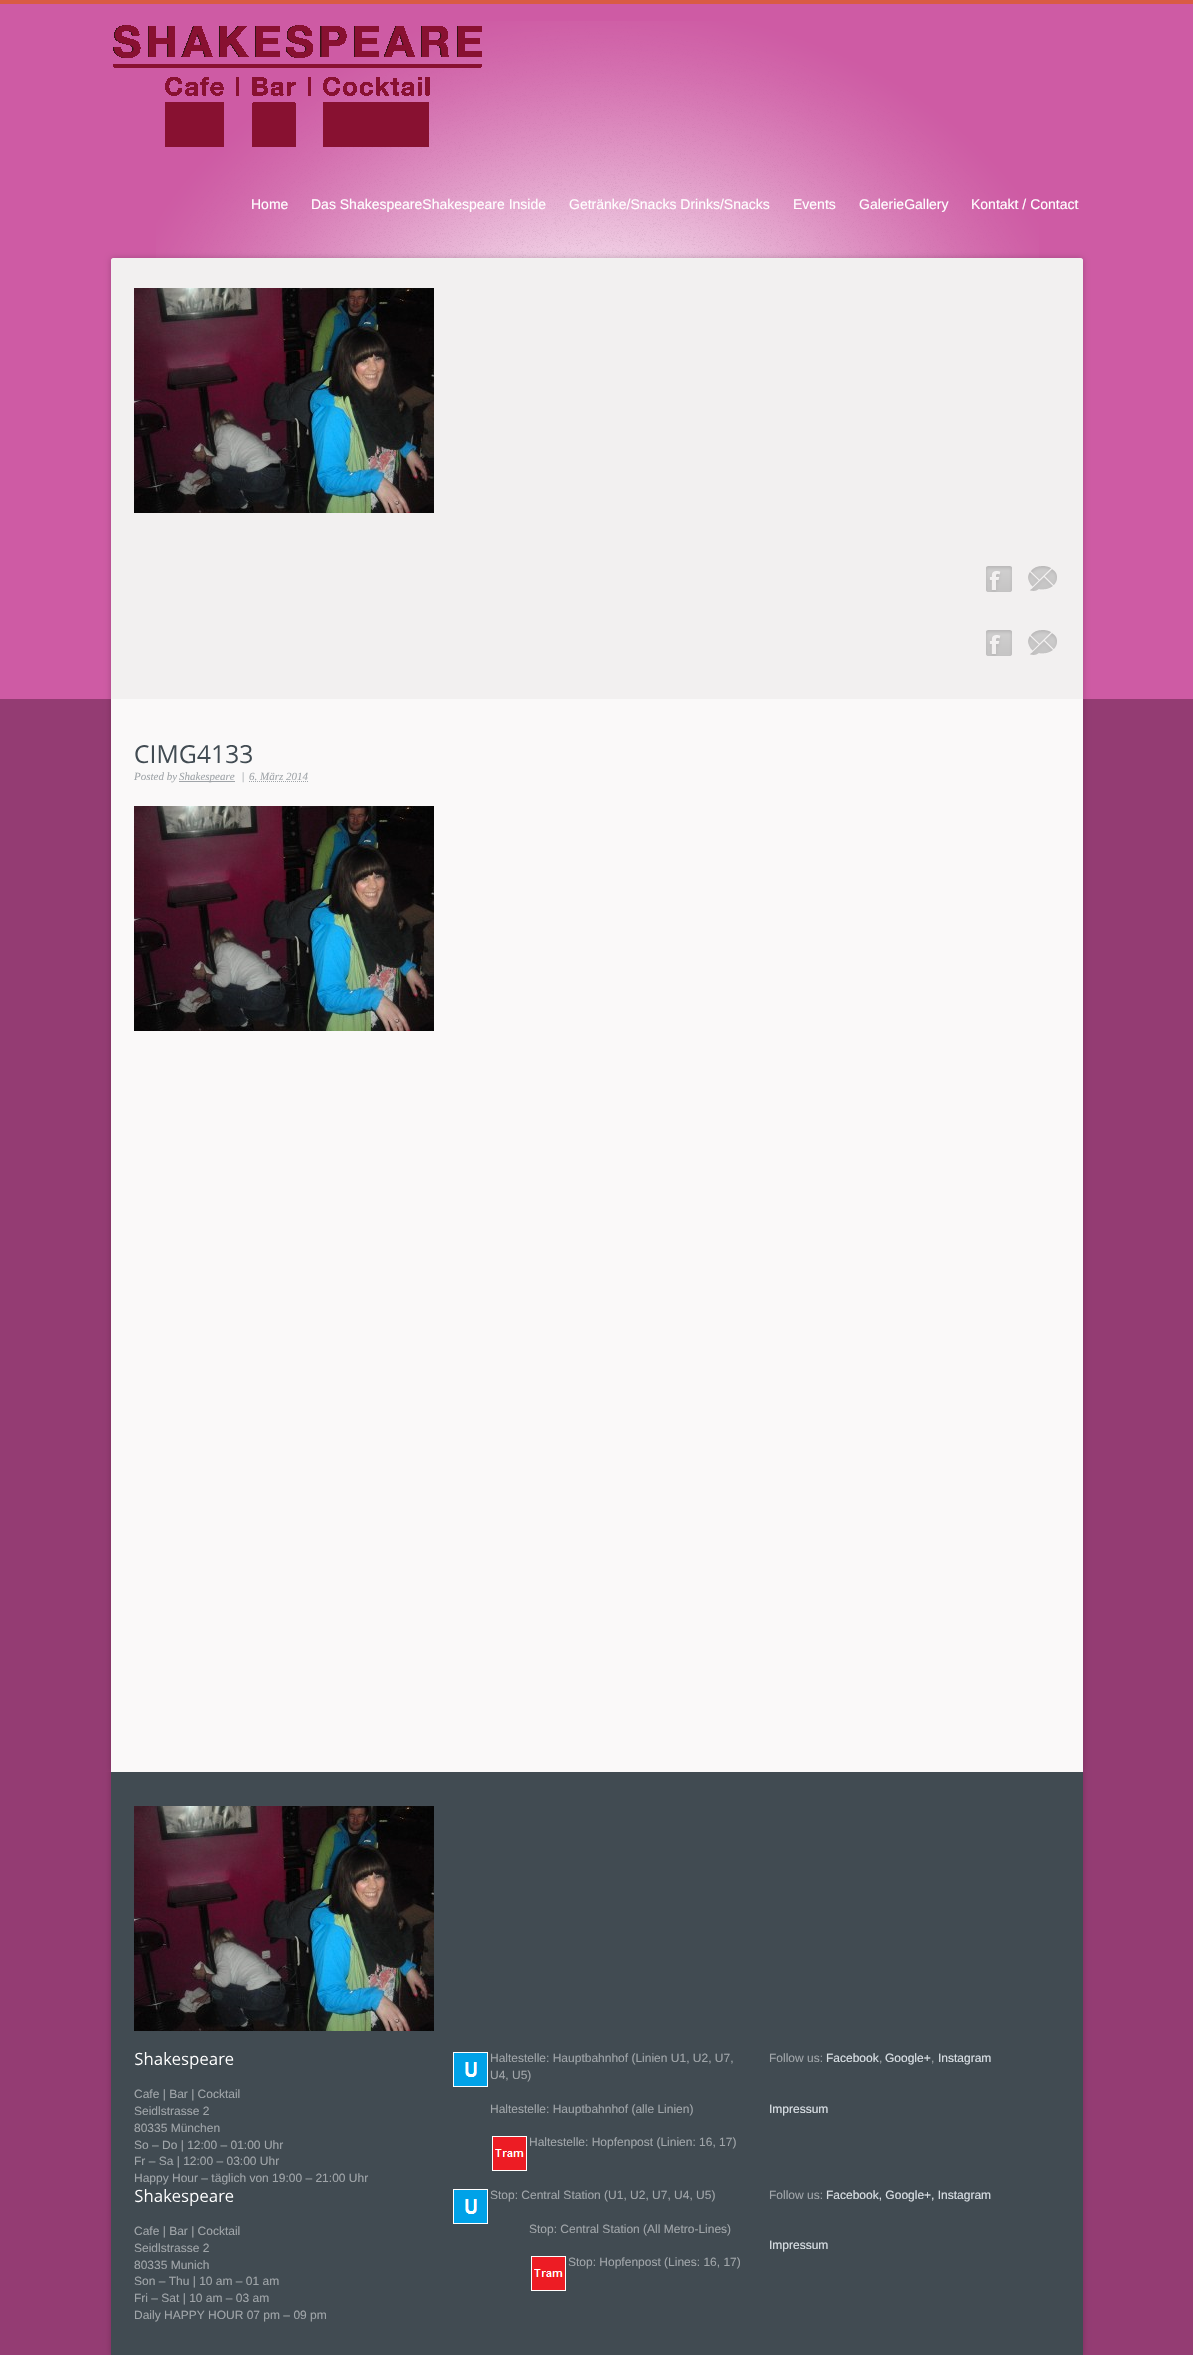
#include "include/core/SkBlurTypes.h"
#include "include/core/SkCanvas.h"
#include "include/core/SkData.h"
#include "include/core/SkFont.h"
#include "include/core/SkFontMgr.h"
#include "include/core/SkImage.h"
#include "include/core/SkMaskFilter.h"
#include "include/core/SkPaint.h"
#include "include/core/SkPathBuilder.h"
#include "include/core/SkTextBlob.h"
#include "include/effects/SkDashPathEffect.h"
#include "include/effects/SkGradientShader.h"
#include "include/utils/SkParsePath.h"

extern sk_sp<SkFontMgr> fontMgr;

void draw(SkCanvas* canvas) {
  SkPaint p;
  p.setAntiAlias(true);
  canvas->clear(SkColorSetRGB(148, 60, 115));
  p.setColor(SkColorSetRGB(217, 91, 68));
  canvas->drawRect(SkRect::MakeLTRB(0, 0, 1193, 4), p);
  p.setColor(SkColorSetRGB(206, 91, 164));
  canvas->drawRect(SkRect::MakeLTRB(0, 4, 1193, 699), p);
  canvas->drawImageRect(SkImages::DeferredFromEncodedData(SkData::MakeFromFileName("images/1.png")), SkRect::MakeLTRB(156, 21, 1039, 258), SkSamplingOptions());
  canvas->drawImageRect(SkImages::DeferredFromEncodedData(SkData::MakeFromFileName("images/2.png")), SkRect::MakeLTRB(113, 25, 482, 147), SkSamplingOptions());
  canvas->save();
  canvas->clipRect(SkRect::MakeLTRB(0, 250, 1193, 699));
  p.setColor(SkColorSetARGB(51, 0, 0, 0));
  p.setMaskFilter(SkMaskFilter::MakeBlur(kNormal_SkBlurStyle, 3));
  canvas->drawRoundRect(SkRect::MakeLTRB(111, 258, 1083, 704), 2, 2, p);
  p.setMaskFilter(nullptr);
  canvas->restore();
  p.setColor(SkColorSetRGB(242, 240, 240));
  canvas->drawPath(SkPathBuilder().moveTo(113, 258).lineTo(1081, 258).cubicTo(1082, 258, 1083, 259, 1083, 260).lineTo(1083, 699).lineTo(111, 699).lineTo(111, 260).cubicTo(111, 259, 112, 258, 113, 258).close().detach(), p);
  canvas->drawImageRect(SkImages::DeferredFromEncodedData(SkData::MakeFromFileName("images/3.png")), SkRect::MakeLTRB(134, 288, 434, 513), SkSamplingOptions());
  canvas->drawImageRect(SkImages::DeferredFromEncodedData(SkData::MakeFromFileName("images/4.png")), SkRect::MakeLTRB(986, 566, 1012, 592), SkSamplingOptions());
  canvas->drawImageRect(SkImages::DeferredFromEncodedData(SkData::MakeFromFileName("images/5.png")), SkRect::MakeLTRB(1028, 566, 1057, 591), SkSamplingOptions());
  canvas->drawImageRect(SkImages::DeferredFromEncodedData(SkData::MakeFromFileName("images/4.png")), SkRect::MakeLTRB(986, 630, 1012, 656), SkSamplingOptions());
  canvas->drawImageRect(SkImages::DeferredFromEncodedData(SkData::MakeFromFileName("images/5.png")), SkRect::MakeLTRB(1028, 630, 1057, 655), SkSamplingOptions());
  canvas->save();
  canvas->clipRect(SkRect::MakeLTRB(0, 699, 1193, 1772));
  p.setColor(SkColorSetARGB(51, 0, 0, 0));
  p.setMaskFilter(SkMaskFilter::MakeBlur(kNormal_SkBlurStyle, 3));
  canvas->drawRect(SkRect::MakeLTRB(111, 694, 1083, 1772), p);
  p.setMaskFilter(nullptr);
  canvas->restore();
  p.setColor(SkColorSetRGB(250, 249, 249));
  canvas->drawRect(SkRect::MakeLTRB(111, 699, 1083, 1772), p);
  canvas->drawImageRect(SkImages::DeferredFromEncodedData(SkData::MakeFromFileName("images/6.png")), SkRect::MakeLTRB(135, 745, 252, 764), SkSamplingOptions());
  p.setColor(SkColorSetRGB(160, 165, 169));
  canvas->drawRect(SkRect::MakeLTRB(179, 781, 235, 782), p);
  p.setStyle(SkPaint::kStroke_Style);
  p.setStrokeWidth(1);
  p.setPathEffect(SkDashPathEffect::Make({{1, 1}}, 0));
  canvas->drawPath(SkPathBuilder().moveTo(249, 781.5f).lineTo(308, 781.5f).detach(), p);
  p.setPathEffect(nullptr);
  canvas->drawImageRect(SkImages::DeferredFromEncodedData(SkData::MakeFromFileName("images/3.png")), SkRect::MakeLTRB(134, 806, 434, 1031), SkSamplingOptions());
  canvas->save();
  canvas->clipRect(SkRect::MakeLTRB(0, 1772, 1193, 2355));
  p.setStyle(SkPaint::kFill_Style);
  p.setColor(SkColorSetARGB(51, 0, 0, 0));
  p.setMaskFilter(SkMaskFilter::MakeBlur(kNormal_SkBlurStyle, 3));
  canvas->drawRect(SkRect::MakeLTRB(111, 1767, 1083, 2355), p);
  p.setMaskFilter(nullptr);
  canvas->restore();
  p.setColor(SkColorSetRGB(65, 75, 82));
  canvas->drawRect(SkRect::MakeLTRB(111, 1772, 1083, 2355), p);
  canvas->drawImageRect(SkImages::DeferredFromEncodedData(SkData::MakeFromFileName("images/3.png")), SkRect::MakeLTRB(134, 1806, 434, 2031), SkSamplingOptions());
  canvas->drawImageRect(SkImages::DeferredFromEncodedData(SkData::MakeFromFileName("images/7.png")), SkRect::MakeLTRB(135, 2052, 234, 2069), SkSamplingOptions());
  canvas->drawImageRect(SkImages::DeferredFromEncodedData(SkData::MakeFromFileName("images/8.png")), SkRect::MakeLTRB(453, 2052, 488, 2087), SkSamplingOptions());
  canvas->drawImageRect(SkImages::DeferredFromEncodedData(SkData::MakeFromFileName("images/9.png")), SkRect::MakeLTRB(492, 2136, 527, 2171), SkSamplingOptions());
  canvas->drawImageRect(SkImages::DeferredFromEncodedData(SkData::MakeFromFileName("images/7.png")), SkRect::MakeLTRB(135, 2189, 234, 2206), SkSamplingOptions());
  canvas->drawImageRect(SkImages::DeferredFromEncodedData(SkData::MakeFromFileName("images/8.png")), SkRect::MakeLTRB(453, 2189, 488, 2224), SkSamplingOptions());
  canvas->drawImageRect(SkImages::DeferredFromEncodedData(SkData::MakeFromFileName("images/9.png")), SkRect::MakeLTRB(531, 2256, 566, 2291), SkSamplingOptions());
  SkFont font1(fontMgr->matchFamilyStyle("Liberation Sans", SkFontStyle::Normal()), 14);
  font1.setSubpixel(true);
  p.setColor(SK_ColorWHITE);
  canvas->drawString("Home", 251, 209, font1, p);
  canvas->drawString("Das ShakespeareShakespeare Inside", 311, 209, font1, p);
  canvas->drawString("Getränke/Snacks Drinks/Snacks", 569, 209, font1, p);
  canvas->drawString("Events", 793, 209, font1, p);
  canvas->drawString("GalerieGallery", 859, 209, font1, p);
  canvas->drawString("Kontakt / Contact", 971, 209, font1, p);
  SkFont font2(fontMgr->matchFamilyStyle("Liberation Serif", SkFontStyle::Italic()), 11);
  font2.setSubpixel(true);
  p.setColor(SkColorSetRGB(160, 165, 169));
  canvas->drawString("Posted by", 134, 780, font2, p);
  canvas->drawString("Shakespeare", 179, 780, font2, p);
  SkFont font3(fontMgr->matchFamilyStyle("Liberation Serif", SkFontStyle::Normal()), 11);
  font3.setSubpixel(true);
  canvas->drawString("|", 242, 780, font3, p);
  canvas->drawString("6. März 2014", 249, 780, font2, p);
  SkFont font4(fontMgr->matchFamilyStyle("Liberation Sans", SkFontStyle::Normal()), 12);
  font4.setSubpixel(true);
  canvas->drawString("Cafe | Bar | Cocktail", 134, 2098, font4, p);
  canvas->drawString("Seidlstrasse 2", 134, 2115, font4, p);
  canvas->drawString("80335 München", 134, 2132, font4, p);
  canvas->drawString("So – Do | 12:00 – 01:00 Uhr", 134, 2149, font4, p);
  canvas->drawString("Fr – Sa | 12:00 – 03:00 Uhr", 134, 2165, font4, p);
  canvas->drawString("Happy Hour – täglich von 19:00 – 21:00 Uhr", 134, 2182, font4, p);
  canvas->drawString("Haltestelle: Hauptbahnhof (Linien U1, U2, U7,", 490, 2062, font4, p);
  canvas->drawString("U4, U5)", 490, 2079, font4, p);
  canvas->drawString("Haltestelle: Hauptbahnhof (alle Linien)", 490, 2113, font4, p);
  canvas->drawString("Haltestelle: Hopfenpost (Linien: 16, 17)", 529, 2146, font4, p);
  canvas->drawString("Follow us:", 769, 2062, font4, p);
  p.setColor(SkColorSetRGB(218, 224, 229));
  canvas->drawString("Facebook", 826, 2062, font4, p);
  p.setColor(SkColorSetRGB(160, 165, 169));
  canvas->drawString(",", 879, 2062, font4, p);
  p.setColor(SkColorSetRGB(218, 224, 229));
  canvas->drawString("Google+", 885, 2062, font4, p);
  p.setColor(SkColorSetRGB(160, 165, 169));
  canvas->drawString(",", 931, 2062, font4, p);
  p.setColor(SkColorSetRGB(218, 224, 229));
  canvas->drawString("Instagram", 938, 2062, font4, p);
  canvas->drawString("Impressum", 769, 2113, font4, p);
  p.setColor(SkColorSetRGB(160, 165, 169));
  canvas->drawString("Cafe | Bar | Cocktail", 134, 2235, font4, p);
  canvas->drawString("Seidlstrasse 2", 134, 2252, font4, p);
  canvas->drawString("80335 Munich", 134, 2269, font4, p);
  canvas->drawString("Son – Thu | 10 am – 01 am", 134, 2285, font4, p);
  canvas->drawString("Fri – Sat | 10 am – 03 am", 134, 2302, font4, p);
  canvas->drawString("Daily HAPPY HOUR 07 pm – 09 pm", 134, 2319, font4, p);
  canvas->drawString("Stop: Central Station (U1, U2, U7, U4, U5)", 490, 2199, font4, p);
  canvas->drawString("Stop: Central Station (All Metro-Lines)", 529, 2233, font4, p);
  canvas->drawString("Stop: Hopfenpost (Lines: 16, 17)", 568, 2266, font4, p);
  canvas->drawString("Follow us:", 769, 2199, font4, p);
  p.setColor(SkColorSetRGB(218, 224, 229));
  canvas->drawString("Facebook, Google+, Instagram", 826, 2199, font4, p);
  canvas->drawString("Impressum", 769, 2249, font4, p);
}
